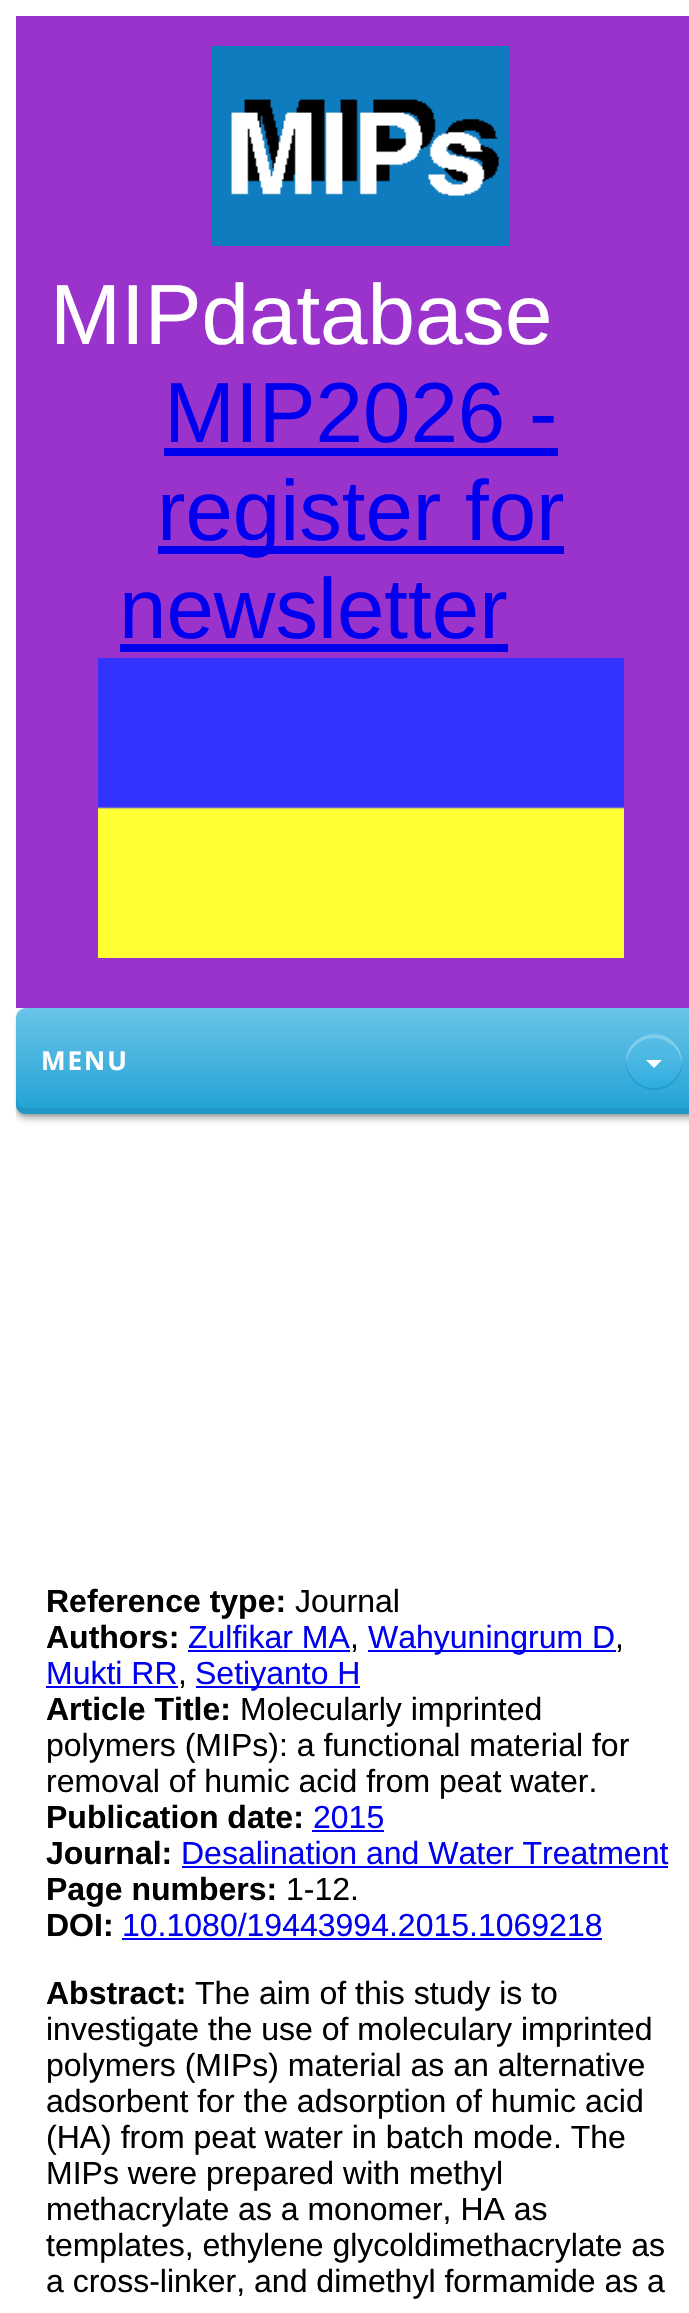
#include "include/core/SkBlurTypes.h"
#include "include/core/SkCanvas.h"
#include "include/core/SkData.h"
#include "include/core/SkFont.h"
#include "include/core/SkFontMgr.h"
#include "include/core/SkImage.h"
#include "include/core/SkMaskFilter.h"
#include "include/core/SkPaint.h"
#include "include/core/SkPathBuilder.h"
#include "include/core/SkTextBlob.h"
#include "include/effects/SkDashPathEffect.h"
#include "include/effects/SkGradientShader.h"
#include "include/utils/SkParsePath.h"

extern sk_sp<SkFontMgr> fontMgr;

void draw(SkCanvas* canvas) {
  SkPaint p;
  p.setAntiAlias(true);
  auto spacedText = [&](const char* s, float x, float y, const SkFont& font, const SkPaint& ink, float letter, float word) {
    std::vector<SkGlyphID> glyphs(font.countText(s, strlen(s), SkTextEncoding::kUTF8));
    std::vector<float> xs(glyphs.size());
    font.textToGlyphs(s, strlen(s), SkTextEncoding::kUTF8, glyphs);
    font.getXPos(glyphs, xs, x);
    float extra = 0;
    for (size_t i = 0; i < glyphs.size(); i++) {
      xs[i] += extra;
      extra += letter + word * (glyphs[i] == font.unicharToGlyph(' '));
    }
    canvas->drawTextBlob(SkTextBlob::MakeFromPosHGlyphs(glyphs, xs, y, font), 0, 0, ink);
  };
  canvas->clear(SK_ColorWHITE);
  p.setColor(SkColorSetRGB(153, 51, 204));
  canvas->drawRect(SkRect::MakeLTRB(16, 16, 689, 1008), p);
  canvas->drawImageRect(SkImages::DeferredFromEncodedData(SkData::MakeFromFileName("images/1.png")), SkRect::MakeLTRB(212, 46, 510, 246), SkSamplingOptions());
  p.setColor(SkColorSetRGB(0, 0, 238));
  canvas->drawRect(SkRect::MakeLTRB(164, 448, 558, 456), p);
  canvas->drawRect(SkRect::MakeLTRB(158, 546, 564, 554), p);
  canvas->drawRect(SkRect::MakeLTRB(120, 644, 508, 652), p);
  canvas->drawImageRect(SkImages::DeferredFromEncodedData(SkData::MakeFromFileName("images/2.png")), SkRect::MakeLTRB(98, 658, 624, 958), SkSamplingOptions());
  canvas->save();
  canvas->clipRect(SkRect::MakeLTRB(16, 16, 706, 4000));
  p.setColor(SkColorSetARGB(13, 0, 0, 0));
  p.setMaskFilter(SkMaskFilter::MakeBlur(kNormal_SkBlurStyle, 2));
  canvas->drawRoundRect(SkRect::MakeLTRB(12, 1010, 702, 1116), 10, 10, p);
  p.setMaskFilter(nullptr);
  canvas->restore();
  p.setMaskFilter(SkMaskFilter::MakeBlur(kNormal_SkBlurStyle, 2));
  canvas->drawRoundRect(SkRect::MakeLTRB(20, 1010, 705, 1116), 10, 10, p);
  p.setMaskFilter(nullptr);
  canvas->save();
  canvas->clipRect(SkRect::MakeLTRB(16, 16, 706, 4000));
  p.setColor(SkColorSetARGB(43, 0, 0, 0));
  p.setMaskFilter(SkMaskFilter::MakeBlur(kNormal_SkBlurStyle, 3));
  canvas->drawRoundRect(SkRect::MakeLTRB(16, 1014, 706, 1120), 10, 10, p);
  p.setMaskFilter(nullptr);
  canvas->restore();
  canvas->save();
  canvas->clipPath(SkPathBuilder(SkPathFillType::kEvenOdd).moveTo(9, 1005).lineTo(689, 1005).lineTo(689, 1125).lineTo(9, 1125).close().moveTo(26, 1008).lineTo(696, 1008).cubicTo(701.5f, 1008, 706, 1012.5f, 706, 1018).lineTo(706, 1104).cubicTo(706, 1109.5f, 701.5f, 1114, 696, 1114).lineTo(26, 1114).cubicTo(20.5f, 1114, 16, 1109.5f, 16, 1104).lineTo(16, 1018).cubicTo(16, 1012.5f, 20.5f, 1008, 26, 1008).close().detach(), true);
  p.setColor(SkColorSetARGB(15, 0, 0, 0));
  p.setMaskFilter(SkMaskFilter::MakeBlur(kNormal_SkBlurStyle, 2));
  canvas->drawRoundRect(SkRect::MakeLTRB(16, 1012, 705, 1118), 10, 10, p);
  p.setMaskFilter(nullptr);
  canvas->restore();
  p.setColor(SkColorSetARGB(26, 0, 0, 0));
  p.setMaskFilter(SkMaskFilter::MakeBlur(kNormal_SkBlurStyle, 1));
  canvas->drawRoundRect(SkRect::MakeLTRB(16, 1010, 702, 1116), 10, 10, p);
  p.setMaskFilter(nullptr);
  {
    const SkColor colors[] = {SkColorSetRGB(105, 196, 232), SkColorSetRGB(33, 161, 212)};
    const float stops[] = {0, 1};
    const SkPoint ends[] = {{361, 1008}, {361, 1114}};
    p.setShader(SkGradientShader::MakeLinear(ends, colors, stops, 2, SkTileMode::kClamp));
    p.setAlpha(255);
  }
  canvas->drawRoundRect(SkRect::MakeLTRB(16, 1008, 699, 1114), 10, 10, p);
  p.setShader(nullptr);
  p.setColor(SkColorSetRGB(31, 151, 199));
  canvas->drawPath(SkPathBuilder().moveTo(16, 1098).lineTo(16, 1104).cubicTo(16, 1110, 20, 1114, 26, 1114).lineTo(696, 1114).cubicTo(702, 1114, 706, 1110, 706, 1104).lineTo(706, 1098).cubicTo(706, 1104, 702, 1108, 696, 1108).lineTo(26, 1108).cubicTo(20, 1108, 16, 1104, 16, 1098).close().detach(), p);
  {
    const SkColor colors[] = {SkColorSetRGB(88, 189, 229), SkColorSetRGB(74, 183, 227), SkColorSetRGB(43, 171, 222), SkColorSetRGB(88, 189, 229), SkColorSetRGB(74, 183, 227)};
    const float stops[] = {0, 0.25f, 0.5f, 0.75f, 1};
    const SkPoint ends[] = {{682, 1034}, {682, 1146}};
    p.setShader(SkGradientShader::MakeLinear(ends, colors, stops, 5, SkTileMode::kClamp));
    p.setAlpha(255);
  }
  canvas->drawCircle(654, 1062, 28, p);
  p.setShader(nullptr);
  p.setColor(SkColorSetRGB(127, 204, 235));
  canvas->drawPath(SkPathBuilder().moveTo(654, 1038).cubicTo(668, 1038, 681, 1050, 682, 1064).cubicTo(682, 1058, 681, 1052, 677, 1046).cubicTo(661, 1023, 624, 1036, 626, 1064).cubicTo(627, 1050, 640, 1038, 654, 1038).close().detach(), p);
  p.setColor(SkColorSetRGB(32, 158, 208));
  canvas->drawPath(SkPathBuilder().moveTo(626, 1061).cubicTo(625, 1089, 662, 1101, 677, 1078).cubicTo(681, 1073, 682, 1067, 682, 1061).cubicTo(681, 1076, 669, 1088, 654, 1088).cubicTo(639, 1088, 627, 1076, 626, 1061).close().detach(), p);
  p.setColor(SK_ColorWHITE);
  canvas->drawPath(SkPathBuilder().moveTo(646, 1060).lineTo(662, 1060).lineTo(654, 1068).close().detach(), p);
  p.setColor(SkColorSetRGB(0, 0, 238));
  canvas->drawRect(SkRect::MakeLTRB(188, 1650, 350, 1652), p);
  canvas->drawRect(SkRect::MakeLTRB(368, 1650, 616, 1652), p);
  canvas->drawRect(SkRect::MakeLTRB(46, 1686, 178, 1688), p);
  canvas->drawRect(SkRect::MakeLTRB(196, 1686, 360, 1688), p);
  canvas->drawRect(SkRect::MakeLTRB(312, 1830, 384, 1832), p);
  canvas->drawRect(SkRect::MakeLTRB(182, 1866, 668, 1868), p);
  canvas->drawRect(SkRect::MakeLTRB(122, 1938, 602, 1940), p);
  SkFont font1(fontMgr->matchFamilyStyle("Liberation Sans", SkFontStyle::Normal()), 85.25f);
  font1.setSubpixel(true);
  p.setColor(SK_ColorWHITE);
  canvas->drawString("MIPdatabase", 50, 344, font1, p);
  p.setColor(SkColorSetRGB(0, 0, 238));
  canvas->drawString("MIP2026 -", 164, 442, font1, p);
  canvas->drawString("register for", 157, 540, font1, p);
  canvas->drawString("newsletter", 119, 638, font1, p);
  SkFont font2(fontMgr->matchFamilyStyle("Open Sans", SkFontStyle::Bold()), 26);
  font2.setSubpixel(true);
  p.setColor(SK_ColorWHITE);
  spacedText("MENU", 41, 1070, font2, p, 2, 0);
  SkFont font3(fontMgr->matchFamilyStyle("Liberation Sans", SkFontStyle::Bold()), 32);
  font3.setSubpixel(true);
  p.setColor(SK_ColorBLACK);
  canvas->drawString("Reference type:", 46, 1612, font3, p);
  SkFont font4(fontMgr->matchFamilyStyle("Liberation Sans", SkFontStyle::Normal()), 32);
  font4.setSubpixel(true);
  canvas->drawString("Journal", 295, 1612, font4, p);
  canvas->drawString("Authors:", 46, 1648, font3, p);
  p.setColor(SkColorSetRGB(0, 0, 238));
  canvas->drawString("Zulfikar MA", 188, 1648, font4, p);
  p.setColor(SK_ColorBLACK);
  canvas->drawString(",", 350, 1648, font4, p);
  p.setColor(SkColorSetRGB(0, 0, 238));
  canvas->drawString("Wahyuningrum D", 368, 1648, font4, p);
  p.setColor(SK_ColorBLACK);
  canvas->drawString(",", 615, 1648, font4, p);
  p.setColor(SkColorSetRGB(0, 0, 238));
  canvas->drawString("Mukti RR", 46, 1684, font4, p);
  p.setColor(SK_ColorBLACK);
  canvas->drawString(",", 178, 1684, font4, p);
  p.setColor(SkColorSetRGB(0, 0, 238));
  canvas->drawString("Setiyanto H", 195, 1684, font4, p);
  p.setColor(SK_ColorBLACK);
  canvas->drawString("Article Title:", 46, 1720, font3, p);
  canvas->drawString("Molecularly imprinted", 240, 1720, font4, p);
  canvas->drawString("polymers (MIPs): a functional material for", 46, 1756, font4, p);
  canvas->drawString("removal of humic acid from peat water.", 46, 1792, font4, p);
  canvas->drawString("Publication date:", 46, 1828, font3, p);
  p.setColor(SkColorSetRGB(0, 0, 238));
  canvas->drawString("2015", 313, 1828, font4, p);
  p.setColor(SK_ColorBLACK);
  canvas->drawString("Journal:", 46, 1864, font3, p);
  p.setColor(SkColorSetRGB(0, 0, 238));
  canvas->drawString("Desalination and Water Treatment", 181, 1864, font4, p);
  p.setColor(SK_ColorBLACK);
  canvas->drawString("Page numbers:", 46, 1900, font3, p);
  canvas->drawString("1-12.", 286, 1900, font4, p);
  canvas->drawString("DOI:", 46, 1936, font3, p);
  p.setColor(SkColorSetRGB(0, 0, 238));
  canvas->drawString("10.1080/19443994.2015.1069218", 122, 1936, font4, p);
  p.setColor(SK_ColorBLACK);
  canvas->drawString("Abstract:", 46, 2004, font3, p);
  canvas->drawString("The aim of this study is to", 195, 2004, font4, p);
  canvas->drawString("investigate the use of moleculary imprinted", 46, 2040, font4, p);
  canvas->drawString("polymers (MIPs) material as an alternative", 46, 2076, font4, p);
  canvas->drawString("adsorbent for the adsorption of humic acid", 46, 2112, font4, p);
  canvas->drawString("(HA) from peat water in batch mode. The", 46, 2148, font4, p);
  canvas->drawString("MIPs were prepared with methyl", 46, 2184, font4, p);
  canvas->drawString("methacrylate as a monomer, HA as", 46, 2220, font4, p);
  canvas->drawString("templates, ethylene glycoldimethacrylate as", 46, 2256, font4, p);
  canvas->drawString("a cross-linker, and dimethyl formamide as a", 46, 2292, font4, p);
}
